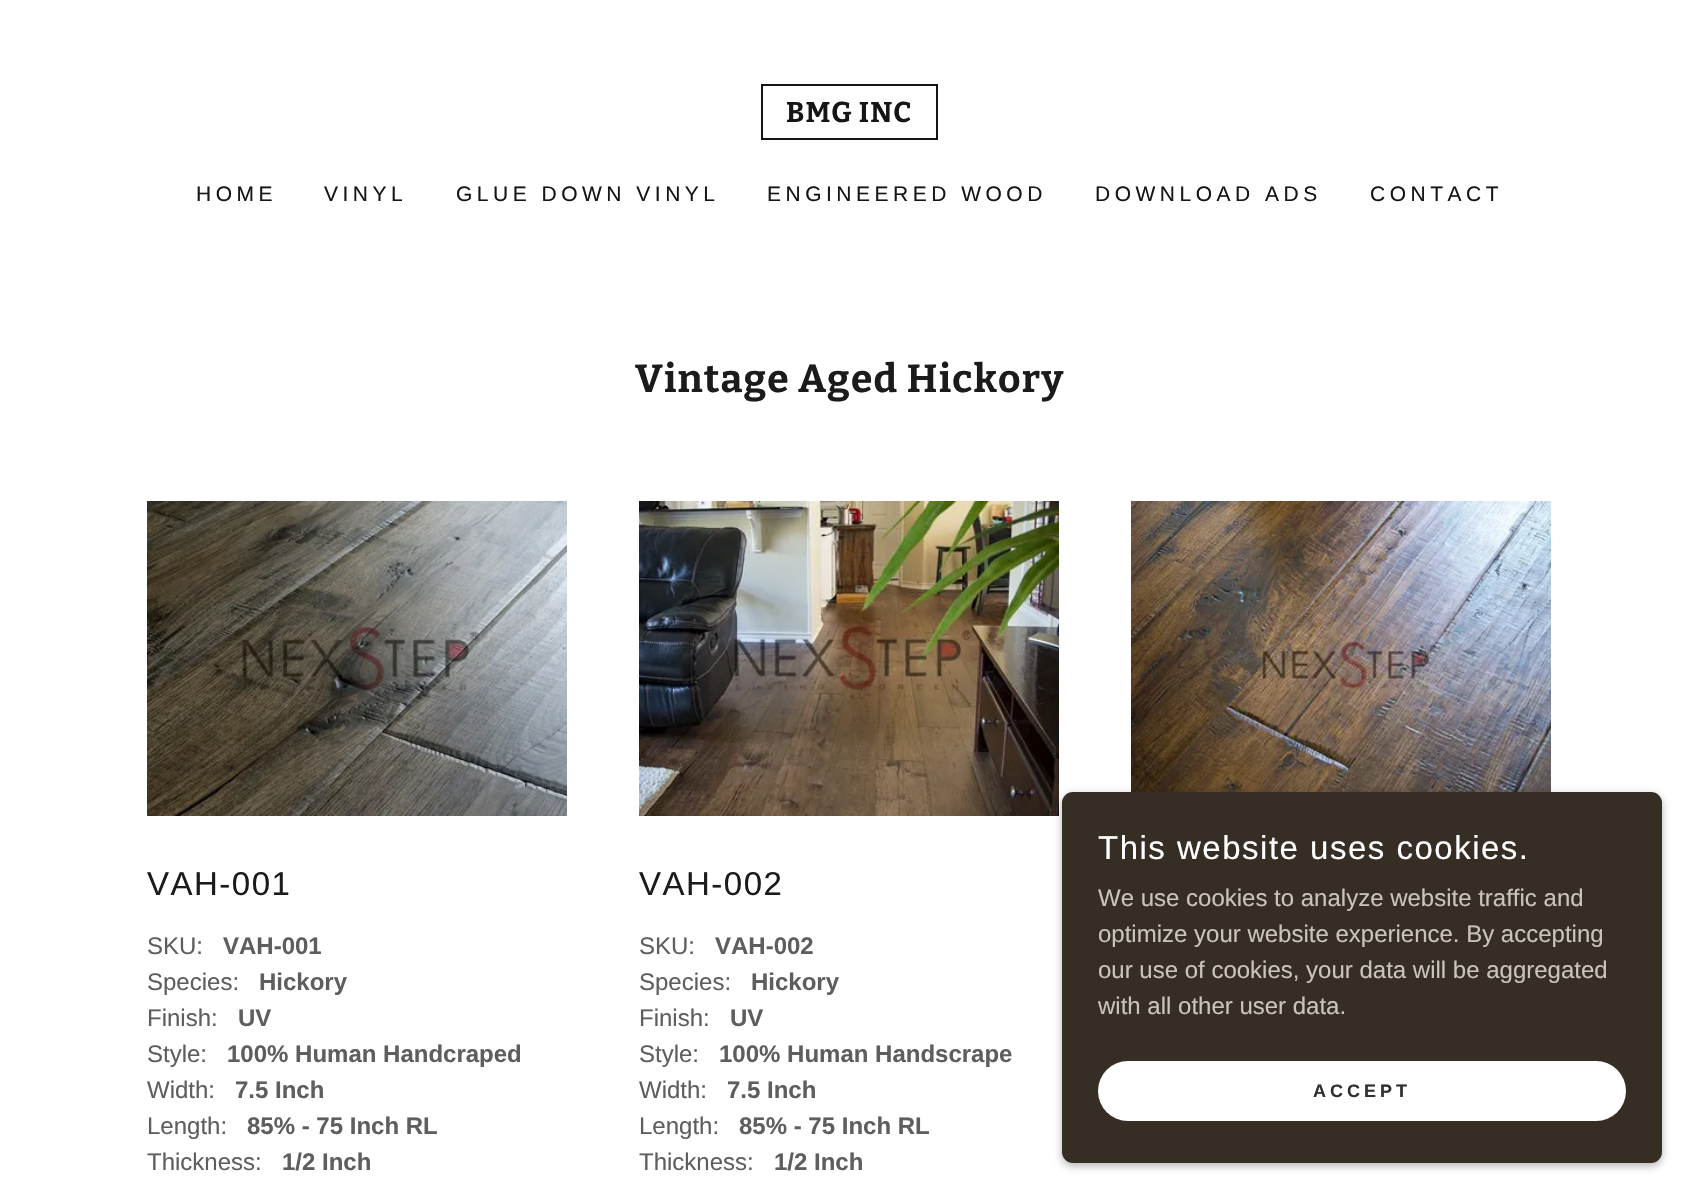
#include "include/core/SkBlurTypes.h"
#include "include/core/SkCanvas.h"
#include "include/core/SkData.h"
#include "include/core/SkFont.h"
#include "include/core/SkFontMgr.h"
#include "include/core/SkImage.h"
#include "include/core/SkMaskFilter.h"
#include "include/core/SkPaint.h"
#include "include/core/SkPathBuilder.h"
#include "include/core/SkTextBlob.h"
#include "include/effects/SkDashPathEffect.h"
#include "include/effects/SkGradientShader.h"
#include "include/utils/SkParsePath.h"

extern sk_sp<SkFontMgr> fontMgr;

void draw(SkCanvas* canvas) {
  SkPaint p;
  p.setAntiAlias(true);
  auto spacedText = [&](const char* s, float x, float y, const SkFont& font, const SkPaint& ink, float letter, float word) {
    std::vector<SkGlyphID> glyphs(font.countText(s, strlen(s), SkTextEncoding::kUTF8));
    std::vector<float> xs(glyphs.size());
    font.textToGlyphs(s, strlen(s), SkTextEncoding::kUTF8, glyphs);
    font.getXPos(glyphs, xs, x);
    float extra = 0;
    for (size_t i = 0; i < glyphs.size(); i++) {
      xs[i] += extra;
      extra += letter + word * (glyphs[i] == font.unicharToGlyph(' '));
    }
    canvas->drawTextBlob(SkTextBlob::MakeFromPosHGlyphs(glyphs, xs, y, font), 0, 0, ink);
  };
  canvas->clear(SK_ColorWHITE);
  p.setStyle(SkPaint::kStroke_Style);
  p.setStrokeWidth(2);
  p.setColor(SkColorSetRGB(21, 21, 21));
  canvas->drawRect(SkRect::MakeLTRB(762, 85, 937, 139), p);
  canvas->drawImageRect(SkImages::DeferredFromEncodedData(SkData::MakeFromFileName("images/1.png")), SkRect::MakeLTRB(1131, 501, 1551, 792), SkSamplingOptions());
  canvas->drawImageRect(SkImages::DeferredFromEncodedData(SkData::MakeFromFileName("images/2.png")), SkRect::MakeLTRB(147, 501, 567, 816), SkSamplingOptions());
  canvas->drawImageRect(SkImages::DeferredFromEncodedData(SkData::MakeFromFileName("images/3.png")), SkRect::MakeLTRB(639, 501, 1059, 816), SkSamplingOptions());
  p.setStyle(SkPaint::kFill_Style);
  p.setColor(SkColorSetARGB(77, 0, 0, 0));
  p.setMaskFilter(SkMaskFilter::MakeBlur(kNormal_SkBlurStyle, 4.5f));
  canvas->drawRoundRect(SkRect::MakeLTRB(1062, 795, 1662, 1166), 11, 11, p);
  p.setMaskFilter(nullptr);
  p.setColor(SkColorSetRGB(54, 45, 37));
  canvas->drawRoundRect(SkRect::MakeLTRB(1062, 792, 1662, 1163), 11, 11, p);
  p.setColor(SK_ColorWHITE);
  canvas->drawRoundRect(SkRect::MakeLTRB(1098, 1061, 1626, 1121), 30, 30, p);
  SkFont font1(fontMgr->matchFamilyStyle("Bitter", SkFontStyle(100, SkFontStyle::kNormal_Width, SkFontStyle::kUpright_Slant)), 28.5f);
  font1.setSubpixel(true);
  p.setColor(SkColorSetRGB(21, 21, 21));
  spacedText("BMG INC", 786, 122, font1, p, 1, 0);
  SkFont font2(fontMgr->matchFamilyStyle("Liberation Sans", SkFontStyle::Normal()), 21);
  font2.setSubpixel(true);
  spacedText("HOME", 196, 201, font2, p, 4.5f, 0);
  spacedText("VINYL", 324, 201, font2, p, 4.5f, 0);
  spacedText("GLUE DOWN VINYL", 456, 201, font2, p, 4.5f, 0);
  spacedText("ENGINEERED WOOD", 767, 201, font2, p, 4.5f, 0);
  spacedText("DOWNLOAD ADS", 1095, 201, font2, p, 4.5f, 0);
  spacedText("CONTACT", 1370, 201, font2, p, 4.5f, 0);
  SkFont font3(fontMgr->matchFamilyStyle("Bitter", SkFontStyle(100, SkFontStyle::kNormal_Width, SkFontStyle::kUpright_Slant)), 39);
  font3.setSubpixel(true);
  p.setColor(SkColorSetRGB(27, 27, 27));
  spacedText("Vintage Aged Hickory", 635, 392, font3, p, 1.25f, 0);
  SkFont font4(fontMgr->matchFamilyStyle("Liberation Sans", SkFontStyle::Normal()), 33);
  font4.setSubpixel(true);
  spacedText("VAH-001", 147, 895, font4, p, 1.5f, 0);
  SkFont font5(fontMgr->matchFamilyStyle("Liberation Sans", SkFontStyle::Normal()), 24);
  font5.setSubpixel(true);
  p.setColor(SkColorSetRGB(94, 94, 94));
  canvas->drawString("SKU:", 147, 954, font5, p);
  SkFont font6(fontMgr->matchFamilyStyle("Liberation Sans", SkFontStyle::Bold()), 24);
  font6.setSubpixel(true);
  canvas->drawString("VAH-001", 223, 954, font6, p);
  canvas->drawString("Species:", 147, 990, font5, p);
  canvas->drawString("Hickory", 259, 990, font6, p);
  canvas->drawString("Finish:", 147, 1026, font5, p);
  canvas->drawString("UV", 238, 1026, font6, p);
  canvas->drawString("Style:", 147, 1062, font5, p);
  canvas->drawString("100% Human Handcraped", 227, 1062, font6, p);
  canvas->drawString("Width:", 147, 1098, font5, p);
  canvas->drawString("7.5 Inch", 235, 1098, font6, p);
  canvas->drawString("Length:", 147, 1134, font5, p);
  canvas->drawString("85% - 75 Inch RL", 247, 1134, font6, p);
  canvas->drawString("Thickness:", 147, 1170, font5, p);
  canvas->drawString("1/2 Inch", 282, 1170, font6, p);
  p.setColor(SkColorSetRGB(27, 27, 27));
  spacedText("VAH-002", 639, 895, font4, p, 1.5f, 0);
  p.setColor(SkColorSetRGB(94, 94, 94));
  canvas->drawString("SKU:", 639, 954, font5, p);
  canvas->drawString("VAH-002", 715, 954, font6, p);
  canvas->drawString("Species:", 639, 990, font5, p);
  canvas->drawString("Hickory", 751, 990, font6, p);
  canvas->drawString("Finish:", 639, 1026, font5, p);
  canvas->drawString("UV", 730, 1026, font6, p);
  canvas->drawString("Style:", 639, 1062, font5, p);
  canvas->drawString("100% Human Handscrape", 719, 1062, font6, p);
  canvas->drawString("Width:", 639, 1098, font5, p);
  canvas->drawString("7.5 Inch", 727, 1098, font6, p);
  canvas->drawString("Length:", 639, 1134, font5, p);
  canvas->drawString("85% - 75 Inch RL", 739, 1134, font6, p);
  canvas->drawString("Thickness:", 639, 1170, font5, p);
  canvas->drawString("1/2 Inch", 774, 1170, font6, p);
  p.setColor(SK_ColorWHITE);
  spacedText("This website uses cookies.", 1098, 859, font4, p, 1.5f, 0);
  p.setColor(SkColorSetRGB(202, 195, 189));
  canvas->drawString("We use cookies to analyze website traffic and", 1098, 906, font5, p);
  canvas->drawString("optimize your website experience. By accepting", 1098, 942, font5, p);
  canvas->drawString("our use of cookies, your data will be aggregated", 1098, 978, font5, p);
  canvas->drawString("with all other user data.", 1098, 1014, font5, p);
  SkFont font7(fontMgr->matchFamilyStyle("Liberation Sans", SkFontStyle::Bold()), 18);
  font7.setSubpixel(true);
  p.setColor(SkColorSetRGB(48, 48, 48));
  spacedText("ACCEPT", 1313, 1097, font7, p, 4, 0);
}
